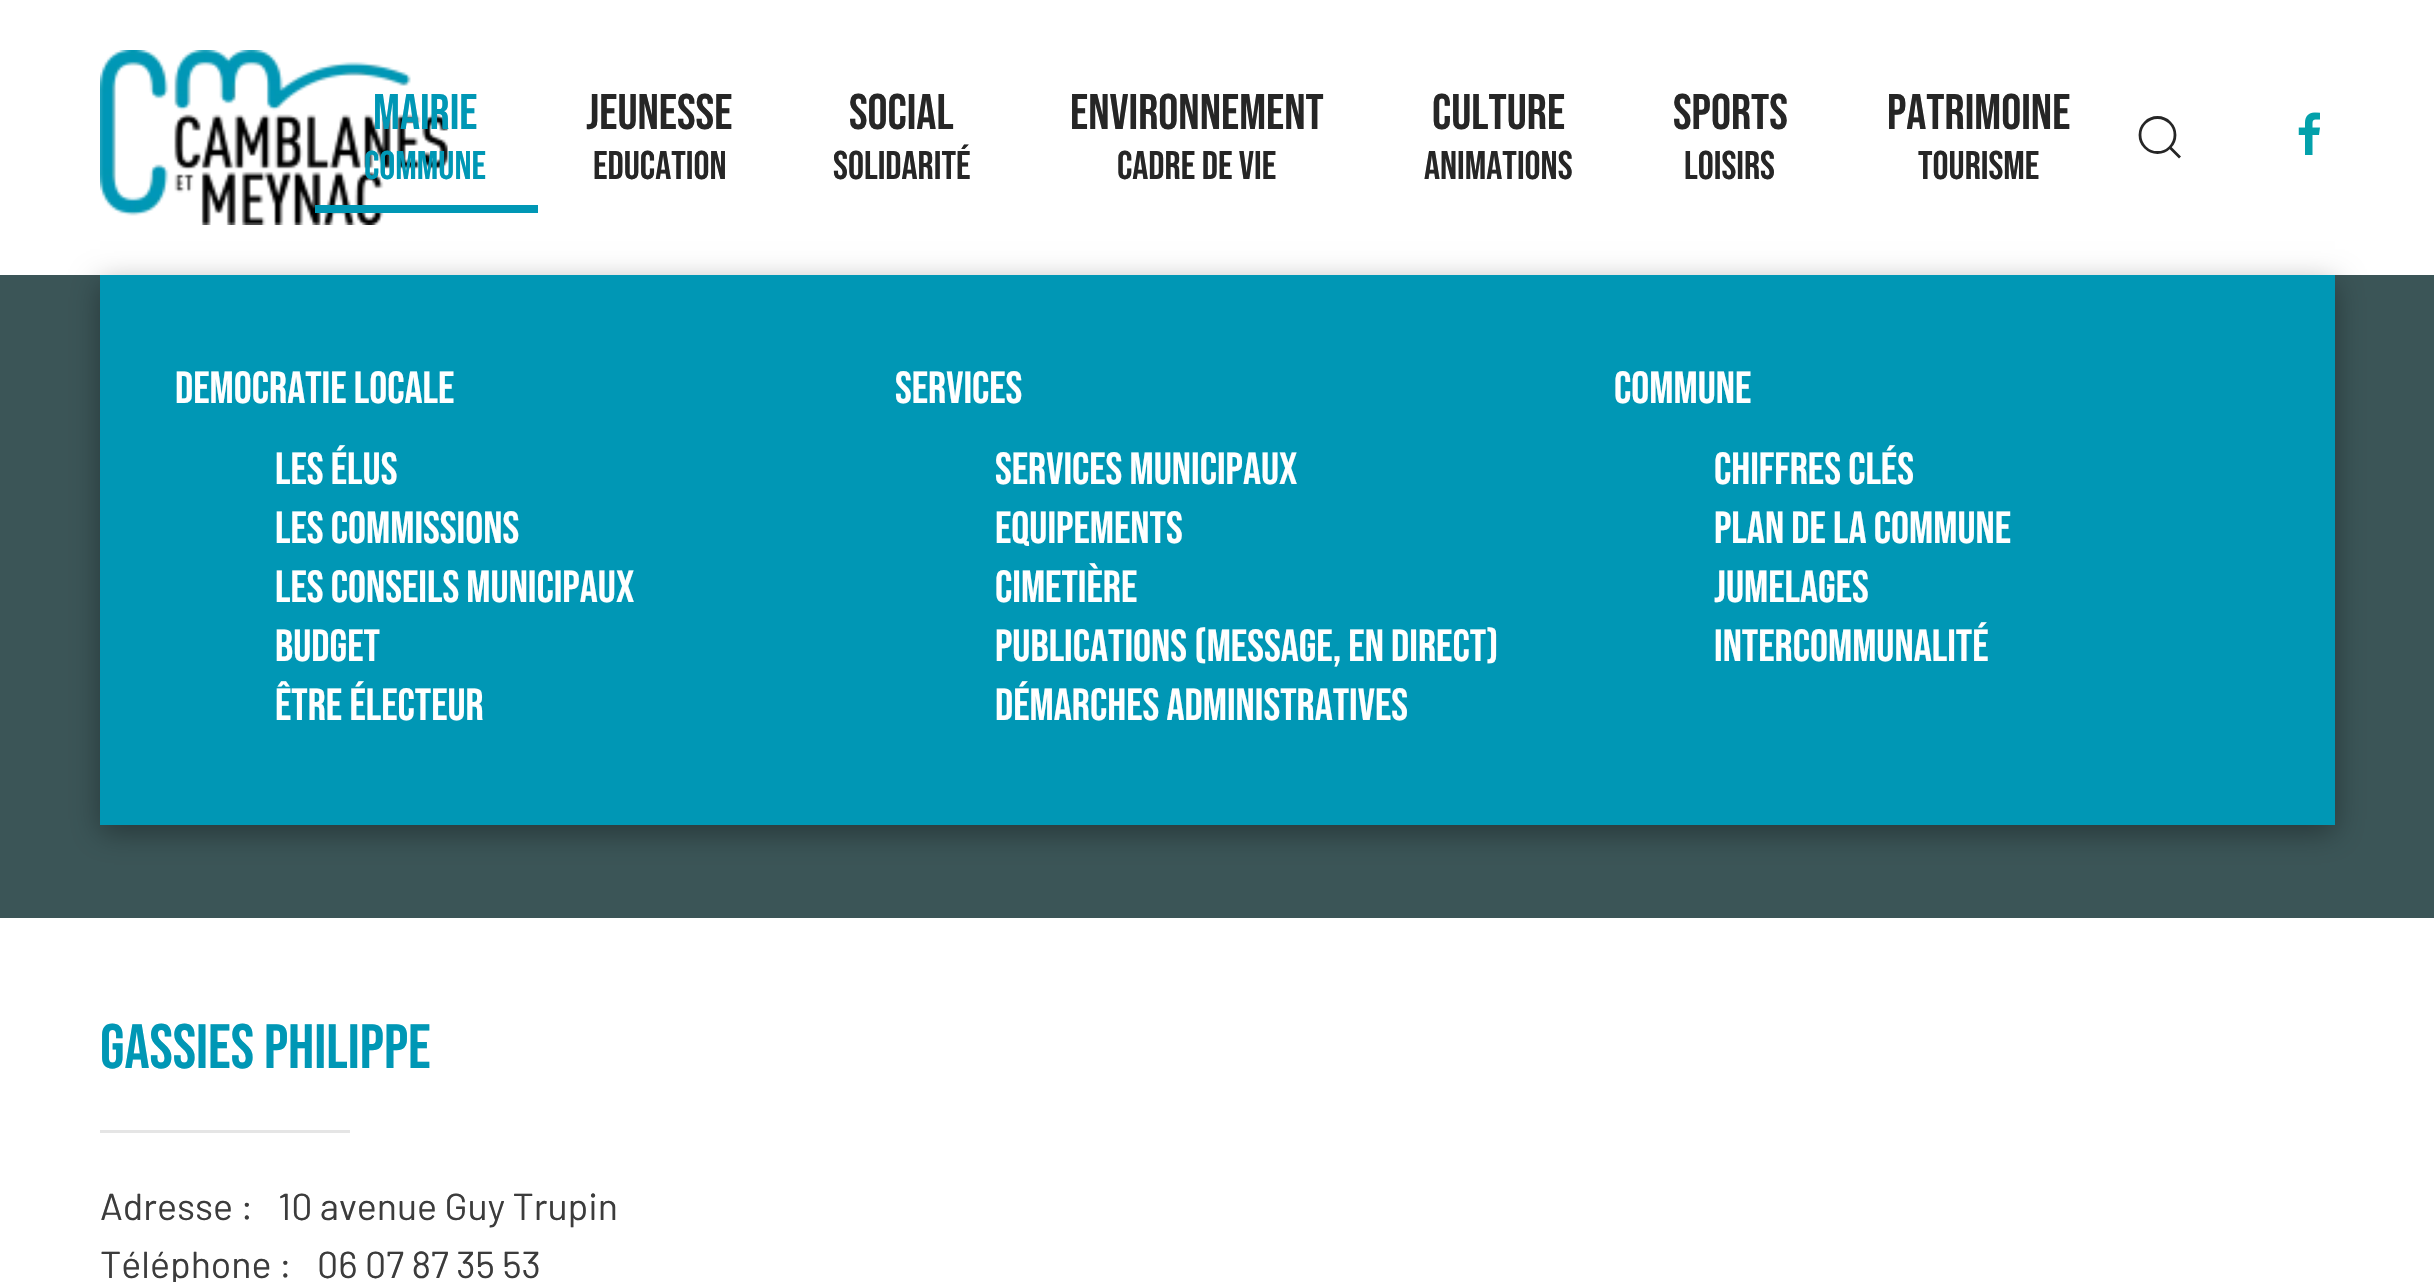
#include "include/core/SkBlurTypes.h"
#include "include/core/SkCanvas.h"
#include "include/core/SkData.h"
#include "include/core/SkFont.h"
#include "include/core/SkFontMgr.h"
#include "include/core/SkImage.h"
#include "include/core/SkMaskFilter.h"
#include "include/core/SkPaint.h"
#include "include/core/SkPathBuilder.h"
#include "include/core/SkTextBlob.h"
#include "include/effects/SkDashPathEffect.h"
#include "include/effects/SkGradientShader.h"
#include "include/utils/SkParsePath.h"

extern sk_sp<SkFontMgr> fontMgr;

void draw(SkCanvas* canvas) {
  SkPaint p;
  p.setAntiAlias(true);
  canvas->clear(SK_ColorWHITE);
  canvas->drawImageRect(SkImages::DeferredFromEncodedData(SkData::MakeFromFileName("images/1.png")), SkRect::MakeLTRB(100, 50, 448, 225), SkSamplingOptions());
  p.setColor(SkColorSetRGB(0, 151, 181));
  canvas->drawRect(SkRect::MakeLTRB(315, 205, 538, 213), p);
  p.setStyle(SkPaint::kStroke_Style);
  p.setStrokeWidth(2.8f);
  p.setColor(SkColorSetRGB(38, 38, 38));
  canvas->drawCircle(2157.5f, 135, 17.5f, p);
  canvas->drawPath(SkPathBuilder().moveTo(2170, 147.5f).lineTo(2180, 157.5f).close().detach(), p);
  canvas->drawImageRect(SkImages::DeferredFromEncodedData(SkData::MakeFromFileName("images/2.png")), SkRect::MakeLTRB(2298, 112, 2320, 155), SkSamplingOptions());
  p.setStyle(SkPaint::kFill_Style);
  p.setColor(SkColorSetRGB(59, 85, 87));
  canvas->drawRect(SkRect::MakeLTRB(0, 275, 2434, 918), p);
  p.setColor(SkColorSetARGB(89, 0, 0, 0));
  p.setMaskFilter(SkMaskFilter::MakeBlur(kNormal_SkBlurStyle, 14));
  canvas->drawRect(SkRect::MakeLTRB(100, 283, 2335, 833), p);
  p.setMaskFilter(nullptr);
  p.setColor(SkColorSetRGB(0, 151, 181));
  canvas->drawRect(SkRect::MakeLTRB(100, 275, 2335, 825), p);
  p.setColor(SkColorSetRGB(229, 229, 229));
  canvas->drawRect(SkRect::MakeLTRB(100, 1130, 350, 1133), p);
  SkFont font1(fontMgr->matchFamilyStyle("Bebas Neue", SkFontStyle::Normal()), 50);
  font1.setSubpixel(true);
  p.setColor(SkColorSetRGB(0, 151, 181));
  canvas->drawString("MAIRIE", 373, 129, font1, p);
  SkFont font2(fontMgr->matchFamilyStyle("Bebas Neue", SkFontStyle::Normal()), 40);
  font2.setSubpixel(true);
  canvas->drawString("COMMUNE", 364, 179, font2, p);
  p.setColor(SkColorSetRGB(38, 38, 38));
  canvas->drawString("JEUNESSE", 586, 129, font1, p);
  canvas->drawString("EDUCATION", 593, 179, font2, p);
  canvas->drawString("SOCIAL", 849, 129, font1, p);
  canvas->drawString("SOLIDARITÉ", 833, 179, font2, p);
  canvas->drawString("ENVIRONNEMENT", 1070, 129, font1, p);
  canvas->drawString("CADRE DE VIE", 1117, 179, font2, p);
  canvas->drawString("CULTURE", 1432, 129, font1, p);
  canvas->drawString("ANIMATIONS", 1424, 179, font2, p);
  canvas->drawString("SPORTS", 1673, 129, font1, p);
  canvas->drawString("LOISIRS", 1684, 179, font2, p);
  canvas->drawString("PATRIMOINE", 1887, 129, font1, p);
  canvas->drawString("TOURISME", 1918, 179, font2, p);
  SkFont font3(fontMgr->matchFamilyStyle("Bebas Neue", SkFontStyle::Normal()), 45);
  font3.setSubpixel(true);
  p.setColor(SK_ColorWHITE);
  canvas->drawString("DEMOCRATIE LOCALE", 175, 403, font3, p);
  canvas->drawString("Les élus", 275, 484, font3, p);
  canvas->drawString("Les commissions", 275, 543, font3, p);
  canvas->drawString("Les conseils municipaux", 275, 602, font3, p);
  canvas->drawString("Budget", 275, 661, font3, p);
  canvas->drawString("Être électeur", 275, 720, font3, p);
  canvas->drawString("SERVICES", 895, 403, font3, p);
  canvas->drawString("Services Municipaux", 995, 484, font3, p);
  canvas->drawString("Equipements", 995, 543, font3, p);
  canvas->drawString("Cimetière", 995, 602, font3, p);
  canvas->drawString("Publications (Message, En Direct)", 995, 661, font3, p);
  canvas->drawString("Démarches administratives", 995, 720, font3, p);
  canvas->drawString("COMMUNE", 1614, 403, font3, p);
  canvas->drawString("Chiffres Clés", 1714, 484, font3, p);
  canvas->drawString("Plan de la commune", 1714, 543, font3, p);
  canvas->drawString("Jumelages", 1714, 602, font3, p);
  canvas->drawString("Intercommunalité", 1714, 661, font3, p);
  SkFont font4(fontMgr->matchFamilyStyle("Bebas Neue", SkFontStyle::Normal()), 62.5f);
  font4.setSubpixel(true);
  p.setColor(SkColorSetRGB(0, 151, 181));
  canvas->drawString("GASSIES PHILIPPE", 100, 1068, font4, p);
  SkFont font5(fontMgr->matchFamilyStyle("Barlow", SkFontStyle::Normal()), 37.5f);
  font5.setSubpixel(true);
  p.setColor(SkColorSetRGB(60, 60, 60));
  canvas->drawString("Adresse :", 100, 1220, font5, p);
  canvas->drawString("10 avenue Guy Trupin", 278, 1220, font5, p);
  canvas->drawString("Téléphone :", 100, 1278, font5, p);
  canvas->drawString("06 07 87 35 53", 317, 1278, font5, p);
}
